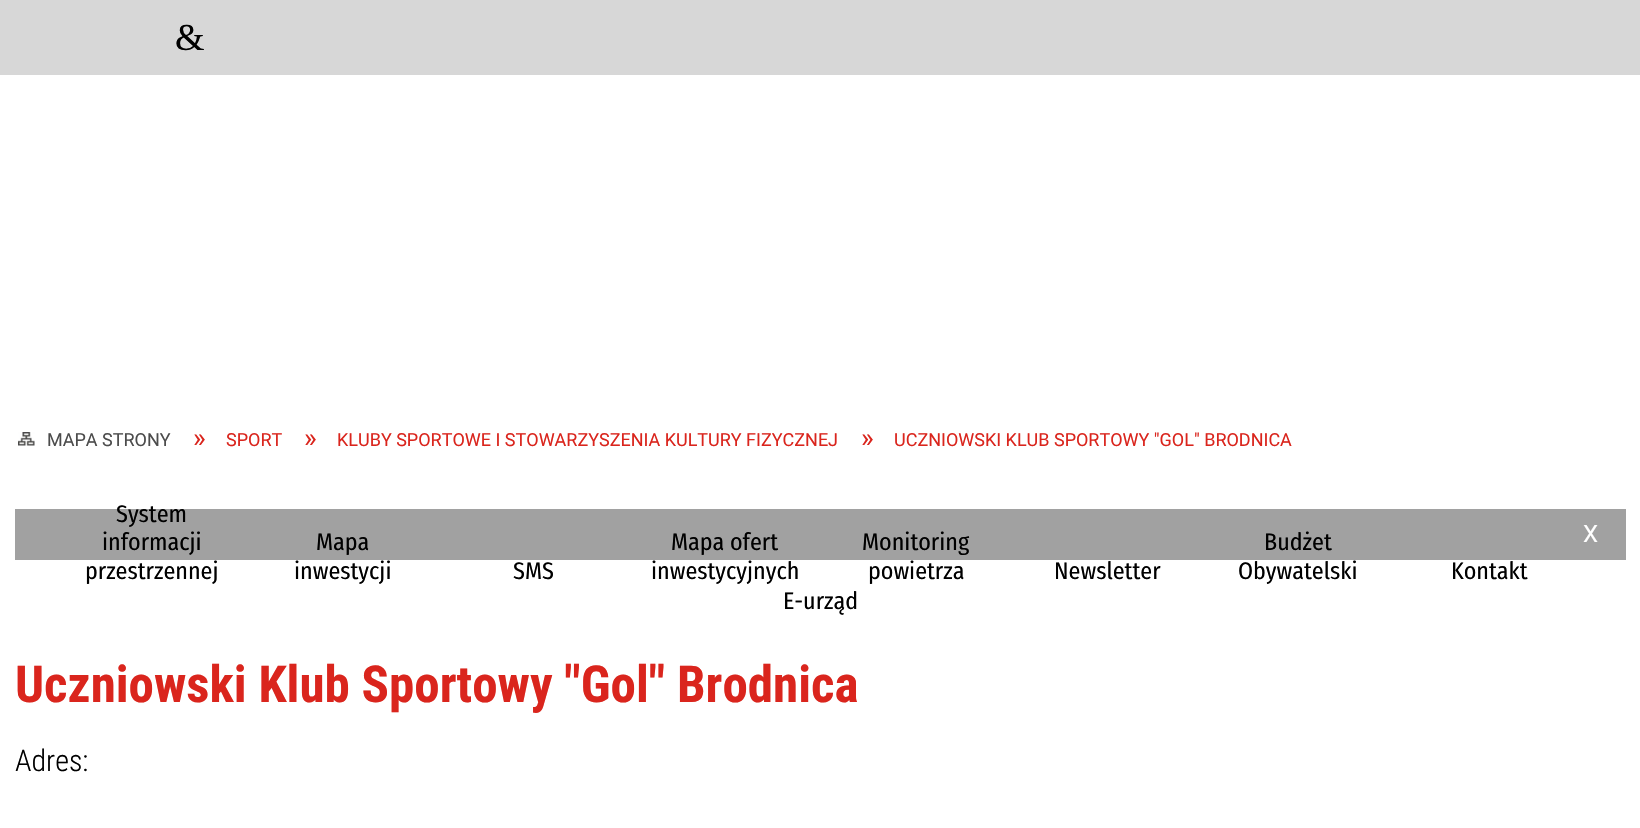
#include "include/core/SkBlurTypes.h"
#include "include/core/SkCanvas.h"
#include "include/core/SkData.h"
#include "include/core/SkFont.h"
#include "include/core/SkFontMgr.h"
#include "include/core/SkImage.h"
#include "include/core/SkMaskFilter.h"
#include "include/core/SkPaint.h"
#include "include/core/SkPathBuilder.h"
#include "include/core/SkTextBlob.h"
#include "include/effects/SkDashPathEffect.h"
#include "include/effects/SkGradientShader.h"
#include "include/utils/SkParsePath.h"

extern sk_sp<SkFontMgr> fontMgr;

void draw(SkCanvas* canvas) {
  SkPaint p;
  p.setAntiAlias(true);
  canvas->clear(SK_ColorWHITE);
  p.setColor(SkColorSetRGB(215, 215, 215));
  canvas->drawRect(SkRect::MakeLTRB(0, 0, 1640, 75), p);
  canvas->drawImageRect(SkImages::DeferredFromEncodedData(SkData::MakeFromFileName("images/1.png")), SkRect::MakeLTRB(18, 432, 35, 446), SkSamplingOptions());
  p.setColor(SkColorSetRGB(161, 161, 161));
  canvas->drawRect(SkRect::MakeLTRB(15, 509, 1626, 560), p);
  SkFont font1(fontMgr->matchFamilyStyle("Liberation Serif", SkFontStyle::Normal()), 38);
  font1.setSubpixel(true);
  p.setColor(SK_ColorBLACK);
  canvas->drawString("&", 175, 50, font1, p);
  SkFont font2(fontMgr->matchFamilyStyle("Roboto", SkFontStyle::Normal()), 18);
  font2.setSubpixel(true);
  p.setColor(SkColorSetRGB(76, 76, 76));
  canvas->drawString("MAPA STRONY", 47, 446, font2, p);
  SkFont font3(fontMgr->matchFamilyStyle("Roboto", SkFontStyle::Normal()), 27);
  font3.setSubpixel(true);
  p.setColor(SkColorSetRGB(218, 37, 29));
  canvas->drawString("»", 193, 447, font3, p);
  canvas->drawString("SPORT", 226, 446, font2, p);
  canvas->drawString("»", 304, 447, font3, p);
  canvas->drawString("KLUBY SPORTOWE I STOWARZYSZENIA KULTURY FIZYCZNEJ", 337, 446, font2, p);
  canvas->drawString("»", 861, 447, font3, p);
  canvas->drawString("UCZNIOWSKI KLUB SPORTOWY \"GOL\" BRODNICA", 894, 446, font2, p);
  SkFont font4(fontMgr->matchFamilyStyle("Fira Sans Condensed", SkFontStyle::Normal()), 24);
  font4.setSubpixel(true);
  p.setColor(SK_ColorBLACK);
  canvas->drawString("System", 116, 522, font4, p);
  canvas->drawString("informacji", 102, 550, font4, p);
  canvas->drawString("przestrzennej", 85, 579, font4, p);
  canvas->drawString("Mapa", 316, 550, font4, p);
  canvas->drawString("inwestycji", 294, 579, font4, p);
  canvas->drawString("SMS", 513, 579, font4, p);
  canvas->drawString("Mapa ofert", 671, 550, font4, p);
  canvas->drawString("inwestycyjnych", 651, 579, font4, p);
  canvas->drawString("Monitoring", 862, 550, font4, p);
  canvas->drawString("powietrza", 868, 579, font4, p);
  canvas->drawString("Newsletter", 1054, 579, font4, p);
  canvas->drawString("Budżet", 1264, 550, font4, p);
  canvas->drawString("Obywatelski", 1238, 579, font4, p);
  canvas->drawString("Kontakt", 1451, 579, font4, p);
  canvas->drawString("E-urząd", 783, 609, font4, p);
  SkFont font5(fontMgr->matchFamilyStyle("Roboto", SkFontStyle::Normal()), 24);
  font5.setSubpixel(true);
  p.setColor(SK_ColorWHITE);
  canvas->drawString("X", 1583, 542, font5, p);
  SkFont font6(fontMgr->matchFamilyStyle("Roboto Condensed", SkFontStyle::Bold()), 51);
  font6.setSubpixel(true);
  p.setColor(SkColorSetRGB(218, 37, 29));
  canvas->drawString("Uczniowski Klub Sportowy \"Gol\" Brodnica", 15, 702, font6, p);
  SkFont font7(fontMgr->matchFamilyStyle("Roboto Condensed", SkFontStyle(300, SkFontStyle::kNormal_Width, SkFontStyle::kUpright_Slant)), 30);
  font7.setSubpixel(true);
  p.setColor(SK_ColorBLACK);
  canvas->drawString("Adres:", 15, 771, font7, p);
}
